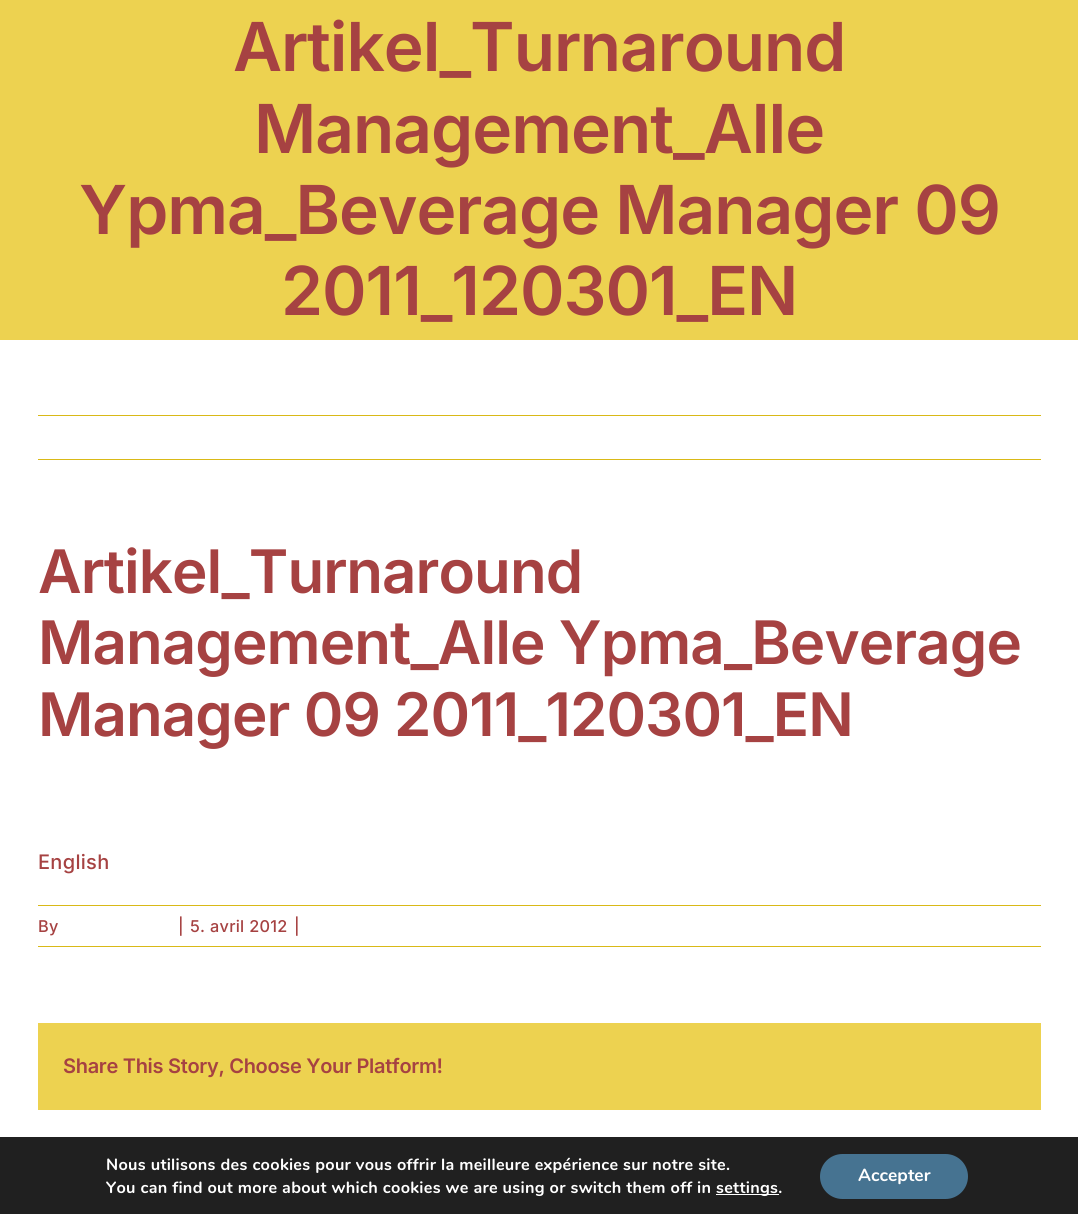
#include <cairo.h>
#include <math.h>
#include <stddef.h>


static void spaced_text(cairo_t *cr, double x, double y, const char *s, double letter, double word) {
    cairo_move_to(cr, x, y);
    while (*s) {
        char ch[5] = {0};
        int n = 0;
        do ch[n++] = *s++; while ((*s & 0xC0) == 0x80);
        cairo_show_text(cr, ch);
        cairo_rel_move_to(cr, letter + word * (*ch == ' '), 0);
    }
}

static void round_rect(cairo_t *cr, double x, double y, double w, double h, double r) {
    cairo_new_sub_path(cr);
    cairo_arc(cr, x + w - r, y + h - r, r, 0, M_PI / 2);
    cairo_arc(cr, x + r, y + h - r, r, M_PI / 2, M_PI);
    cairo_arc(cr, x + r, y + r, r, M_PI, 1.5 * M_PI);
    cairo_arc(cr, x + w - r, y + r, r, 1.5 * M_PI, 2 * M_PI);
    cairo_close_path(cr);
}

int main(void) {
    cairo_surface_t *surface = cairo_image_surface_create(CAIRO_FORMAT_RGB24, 1078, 1214);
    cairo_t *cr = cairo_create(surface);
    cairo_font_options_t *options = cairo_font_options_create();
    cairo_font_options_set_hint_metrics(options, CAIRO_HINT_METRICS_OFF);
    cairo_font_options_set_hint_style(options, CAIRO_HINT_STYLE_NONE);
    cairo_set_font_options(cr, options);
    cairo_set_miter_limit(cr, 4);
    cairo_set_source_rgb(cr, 0.929, 0.824, 0.314);
    cairo_paint(cr);
    cairo_select_font_face(cr, "Inter SemiBold", CAIRO_FONT_SLANT_NORMAL, CAIRO_FONT_WEIGHT_NORMAL);
    cairo_set_font_size(cr, 67.5);
    cairo_set_source_rgb(cr, 0.651, 0.259, 0.259);
    spaced_text(cr, 233, 71, "Artikel_Turnaround", -1, 0);
    spaced_text(cr, 254, 153, "Management_Alle", -1, 0);
    spaced_text(cr, 79, 234, "Ypma_Beverage Manager 09", -1, 0);
    spaced_text(cr, 281, 315, "2011_120301_EN", -1, 0);
    cairo_set_source_rgb(cr, 1, 1, 1);
    cairo_rectangle(cr, 0, 340, 1078, 797);
    cairo_fill(cr);
    cairo_set_source_rgb(cr, 0.851, 0.725, 0.09);
    cairo_rectangle(cr, 38, 415, 1003, 1);
    cairo_fill(cr);
    cairo_rectangle(cr, 38, 459, 1003, 1);
    cairo_fill(cr);
    cairo_set_font_size(cr, 60);
    cairo_set_source_rgb(cr, 0.651, 0.259, 0.259);
    spaced_text(cr, 38, 593, "Artikel_Turnaround", -0.9, 0);
    spaced_text(cr, 38, 664, "Management_Alle Ypma_Beverage", -0.9, 0);
    spaced_text(cr, 38, 736, "Manager 09 2011_120301_EN", -0.9, 0);
    cairo_select_font_face(cr, "Inter Medium", CAIRO_FONT_SLANT_NORMAL, CAIRO_FONT_WEIGHT_NORMAL);
    cairo_set_font_size(cr, 20);
    spaced_text(cr, 38, 869, "English", 0.3, 0);
    cairo_set_source_rgb(cr, 0.851, 0.725, 0.09);
    cairo_rectangle(cr, 38, 905, 1003, 1);
    cairo_fill(cr);
    cairo_rectangle(cr, 38, 946, 1003, 1);
    cairo_fill(cr);
    cairo_set_font_size(cr, 16.25);
    cairo_set_source_rgb(cr, 0.651, 0.259, 0.259);
    spaced_text(cr, 38, 932, "By", 0.3, 0);
    spaced_text(cr, 178, 932, "|", 0.3, 0);
    spaced_text(cr, 190, 932, "5. avril 2012", 0.3, 0);
    spaced_text(cr, 294, 932, "|", 0.3, 0);
    cairo_set_source_rgb(cr, 0.929, 0.824, 0.314);
    cairo_rectangle(cr, 38, 1023, 1003, 87);
    cairo_fill(cr);
    cairo_select_font_face(cr, "Inter SemiBold", CAIRO_FONT_SLANT_NORMAL, CAIRO_FONT_WEIGHT_NORMAL);
    cairo_set_font_size(cr, 20);
    cairo_set_source_rgb(cr, 0.651, 0.259, 0.259);
    spaced_text(cr, 63, 1073, "Share This Story, Choose Your Platform!", -0.3, 0);
    cairo_set_source_rgb(cr, 0.125, 0.125, 0.125);
    cairo_rectangle(cr, 0, 1137, 1078, 77);
    cairo_fill(cr);
    cairo_select_font_face(cr, "Nunito", CAIRO_FONT_SLANT_NORMAL, CAIRO_FONT_WEIGHT_BOLD);
    cairo_set_font_size(cr, 16.25);
    cairo_set_source_rgb(cr, 1, 1, 1);
    spaced_text(cr, 106, 1170, "Nous utilisons des cookies pour vous offrir la meilleure expérience sur notre site.", 0.3, 0);
    spaced_text(cr, 106, 1193, "You can find out more about which cookies we are using or switch them off in", 0.3, 0);
    cairo_rectangle(cr, 716, 1194, 63, 1);
    cairo_fill(cr);
    spaced_text(cr, 716, 1193, "settings.", 0.3, 0);
    cairo_set_source_rgb(cr, 0.275, 0.451, 0.569);
    round_rect(cr, 820, 1154, 148, 45, 22.5);
    cairo_fill(cr);
    cairo_set_font_size(cr, 17.5);
    cairo_set_source_rgb(cr, 1, 1, 1);
    cairo_move_to(cr, 858, 1181);
    cairo_show_text(cr, "Accepter");
    cairo_surface_write_to_png(surface, "page.png");
    cairo_font_options_destroy(options);
    cairo_destroy(cr);
    cairo_surface_destroy(surface);
    return 0;
}
